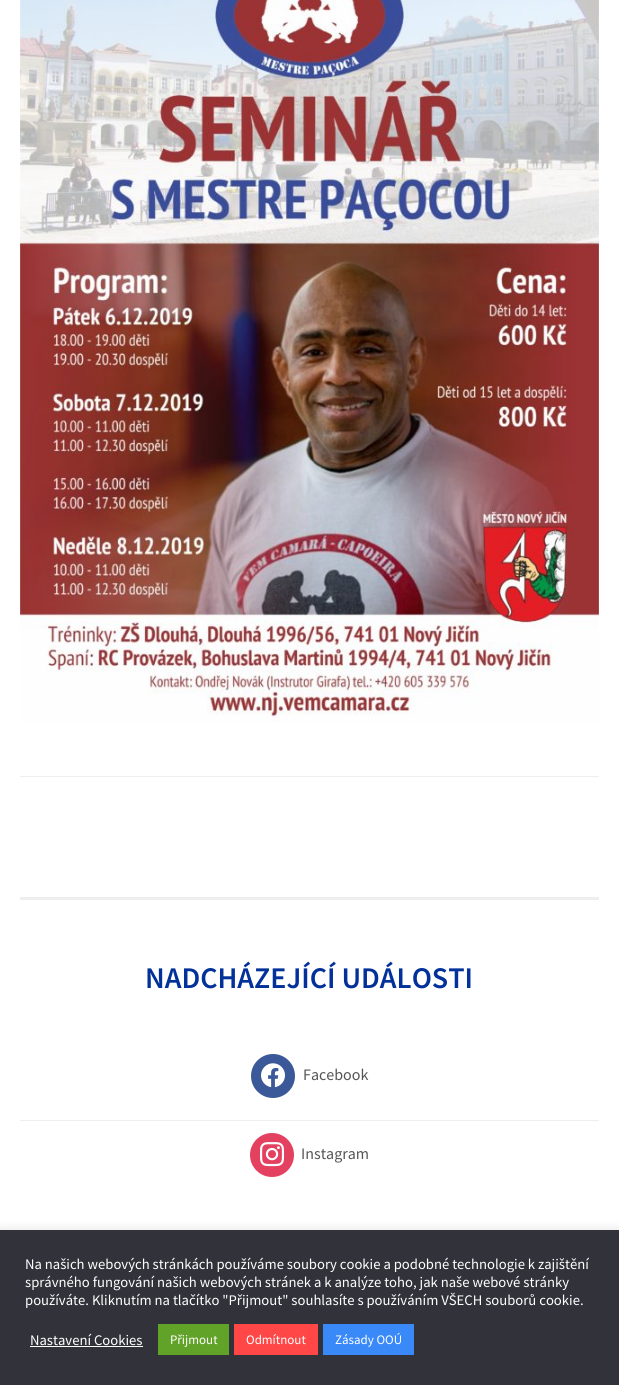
#include <cairo.h>
#include <math.h>
#include <stddef.h>


static void round_rect(cairo_t *cr, double x, double y, double w, double h, double r) {
    cairo_new_sub_path(cr);
    cairo_arc(cr, x + w - r, y + h - r, r, 0, M_PI / 2);
    cairo_arc(cr, x + r, y + h - r, r, M_PI / 2, M_PI);
    cairo_arc(cr, x + r, y + r, r, M_PI, 1.5 * M_PI);
    cairo_arc(cr, x + w - r, y + r, r, 1.5 * M_PI, 2 * M_PI);
    cairo_close_path(cr);
}

static void shadow(cairo_t *cr, double x, double y, double w, double h, double r, double blur, double alpha) {
    cairo_push_group_with_content(cr, CAIRO_CONTENT_ALPHA);
    cairo_set_operator(cr, CAIRO_OPERATOR_SOURCE);
    for (int i = 15; i >= -15 && fmin(w, h) + blur * i / 3 > 0; i -= 2) {
        double e = blur * i / 6;
        cairo_set_source_rgba(cr, 0, 0, 0, alpha * erfc((i - 1) / 8.5) / 2);
        round_rect(cr, x - e, y - e, w + 2 * e, h + 2 * e, fmax(0, fmin(r + e + blur * .6, fmin(w, h) / 2 + e)));
        cairo_fill(cr);
    }
    cairo_pattern_t *soft = cairo_pop_group(cr);
    cairo_mask(cr, soft);
    cairo_pattern_destroy(soft);
}

static void picture(cairo_t *cr, const char *path, double x, double y, double w, double h) {
    cairo_surface_t *image = cairo_image_surface_create_from_png(path);
    cairo_save(cr);
    cairo_set_source_surface(cr, image, x, y);
    cairo_rectangle(cr, x, y, w, h);
    cairo_fill(cr);
    cairo_restore(cr);
    cairo_surface_destroy(image);
}

int main(void) {
    cairo_surface_t *surface = cairo_image_surface_create(CAIRO_FORMAT_RGB24, 619, 1385);
    cairo_t *cr = cairo_create(surface);
    cairo_font_options_t *options = cairo_font_options_create();
    cairo_font_options_set_hint_metrics(options, CAIRO_HINT_METRICS_OFF);
    cairo_font_options_set_hint_style(options, CAIRO_HINT_STYLE_NONE);
    cairo_set_font_options(cr, options);
    cairo_set_miter_limit(cr, 4);
    cairo_set_source_rgb(cr, 1, 1, 1);
    cairo_paint(cr);
    cairo_set_source_rgb(cr, 0.933, 0.933, 0.933);
    cairo_rectangle(cr, 20, 776, 579, 1);
    cairo_fill(cr);
    picture(cr, "img1.png", 20, 0, 579, 724);
    cairo_rectangle(cr, 20, 897, 579, 3);
    cairo_fill(cr);
    cairo_select_font_face(cr, "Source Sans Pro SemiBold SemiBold", CAIRO_FONT_SLANT_NORMAL, CAIRO_FONT_WEIGHT_NORMAL);
    cairo_set_font_size(cr, 30);
    cairo_set_source_rgb(cr, 0.008, 0.192, 0.6);
    cairo_move_to(cr, 145, 988);
    cairo_show_text(cr, "NADCHÁZEJÍCÍ UDÁLOSTI");
    cairo_set_source_rgb(cr, 0.231, 0.349, 0.596);
    cairo_new_path(cr);
    cairo_arc(cr, 273, 1076, 22, 0, 2 * M_PI);
    cairo_fill(cr);
    picture(cr, "img2.png", 261, 1063, 24, 25);
    cairo_select_font_face(cr, "Source Sans Pro", CAIRO_FONT_SLANT_NORMAL, CAIRO_FONT_WEIGHT_NORMAL);
    cairo_set_font_size(cr, 16);
    cairo_set_source_rgb(cr, 0.333, 0.333, 0.333);
    cairo_move_to(cr, 303, 1080);
    cairo_show_text(cr, "Facebook");
    cairo_set_source_rgb(cr, 0.933, 0.933, 0.933);
    cairo_rectangle(cr, 20, 1120, 579, 1);
    cairo_fill(cr);
    cairo_set_source_rgb(cr, 0.894, 0.251, 0.373);
    cairo_arc(cr, 272, 1155, 22, 0, 2 * M_PI);
    cairo_fill(cr);
    picture(cr, "img3.png", 260, 1142, 25, 25);
    cairo_set_source_rgb(cr, 0.333, 0.333, 0.333);
    cairo_move_to(cr, 301, 1159);
    cairo_show_text(cr, "Instagram");
    cairo_set_source_rgb(cr, 0.675, 0.671, 0.671);
    shadow(cr, 0, 1229, 619, 155, 0, 5, 0.3);
    cairo_set_source_rgb(cr, 0.196, 0.196, 0.227);
    cairo_rectangle(cr, 0, 1230, 619, 155);
    cairo_fill(cr);
    cairo_set_font_size(cr, 14.65);
    cairo_set_source_rgb(cr, 1, 1, 1);
    cairo_move_to(cr, 25, 1269);
    cairo_show_text(cr, "Na našich webových stránkách používáme soubory cookie a podobné technologie k zajištění");
    cairo_move_to(cr, 25, 1287);
    cairo_show_text(cr, "správného fungování našich webových stránek a k analýze toho, jak naše webové stránky");
    cairo_move_to(cr, 25, 1305);
    cairo_show_text(cr, "používáte. Kliknutím na tlačítko \"Přijmout\" souhlasíte s používáním VŠECH souborů cookie.");
    cairo_move_to(cr, 30, 1345);
    cairo_show_text(cr, "Nastavení Cookies");
    cairo_rectangle(cr, 30, 1346, 113, 1);
    cairo_fill(cr);
    cairo_set_source_rgb(cr, 0.38, 0.635, 0.161);
    cairo_rectangle(cr, 158, 1324, 71, 31);
    cairo_fill(cr);
    cairo_set_font_size(cr, 13);
    cairo_set_source_rgb(cr, 1, 1, 1);
    cairo_move_to(cr, 170, 1344);
    cairo_show_text(cr, "Přijmout");
    cairo_set_source_rgb(cr, 1, 0.278, 0.278);
    cairo_rectangle(cr, 234, 1324, 84, 31);
    cairo_fill(cr);
    cairo_set_source_rgb(cr, 1, 1, 1);
    cairo_move_to(cr, 246, 1344);
    cairo_show_text(cr, "Odmítnout");
    cairo_set_source_rgb(cr, 0.224, 0.537, 0.976);
    cairo_rectangle(cr, 323, 1324, 91, 31);
    cairo_fill(cr);
    cairo_set_source_rgb(cr, 1, 1, 1);
    cairo_move_to(cr, 335, 1344);
    cairo_show_text(cr, "Zásady OOÚ");
    cairo_surface_write_to_png(surface, "page.png");
    cairo_font_options_destroy(options);
    cairo_destroy(cr);
    cairo_surface_destroy(surface);
    return 0;
}
